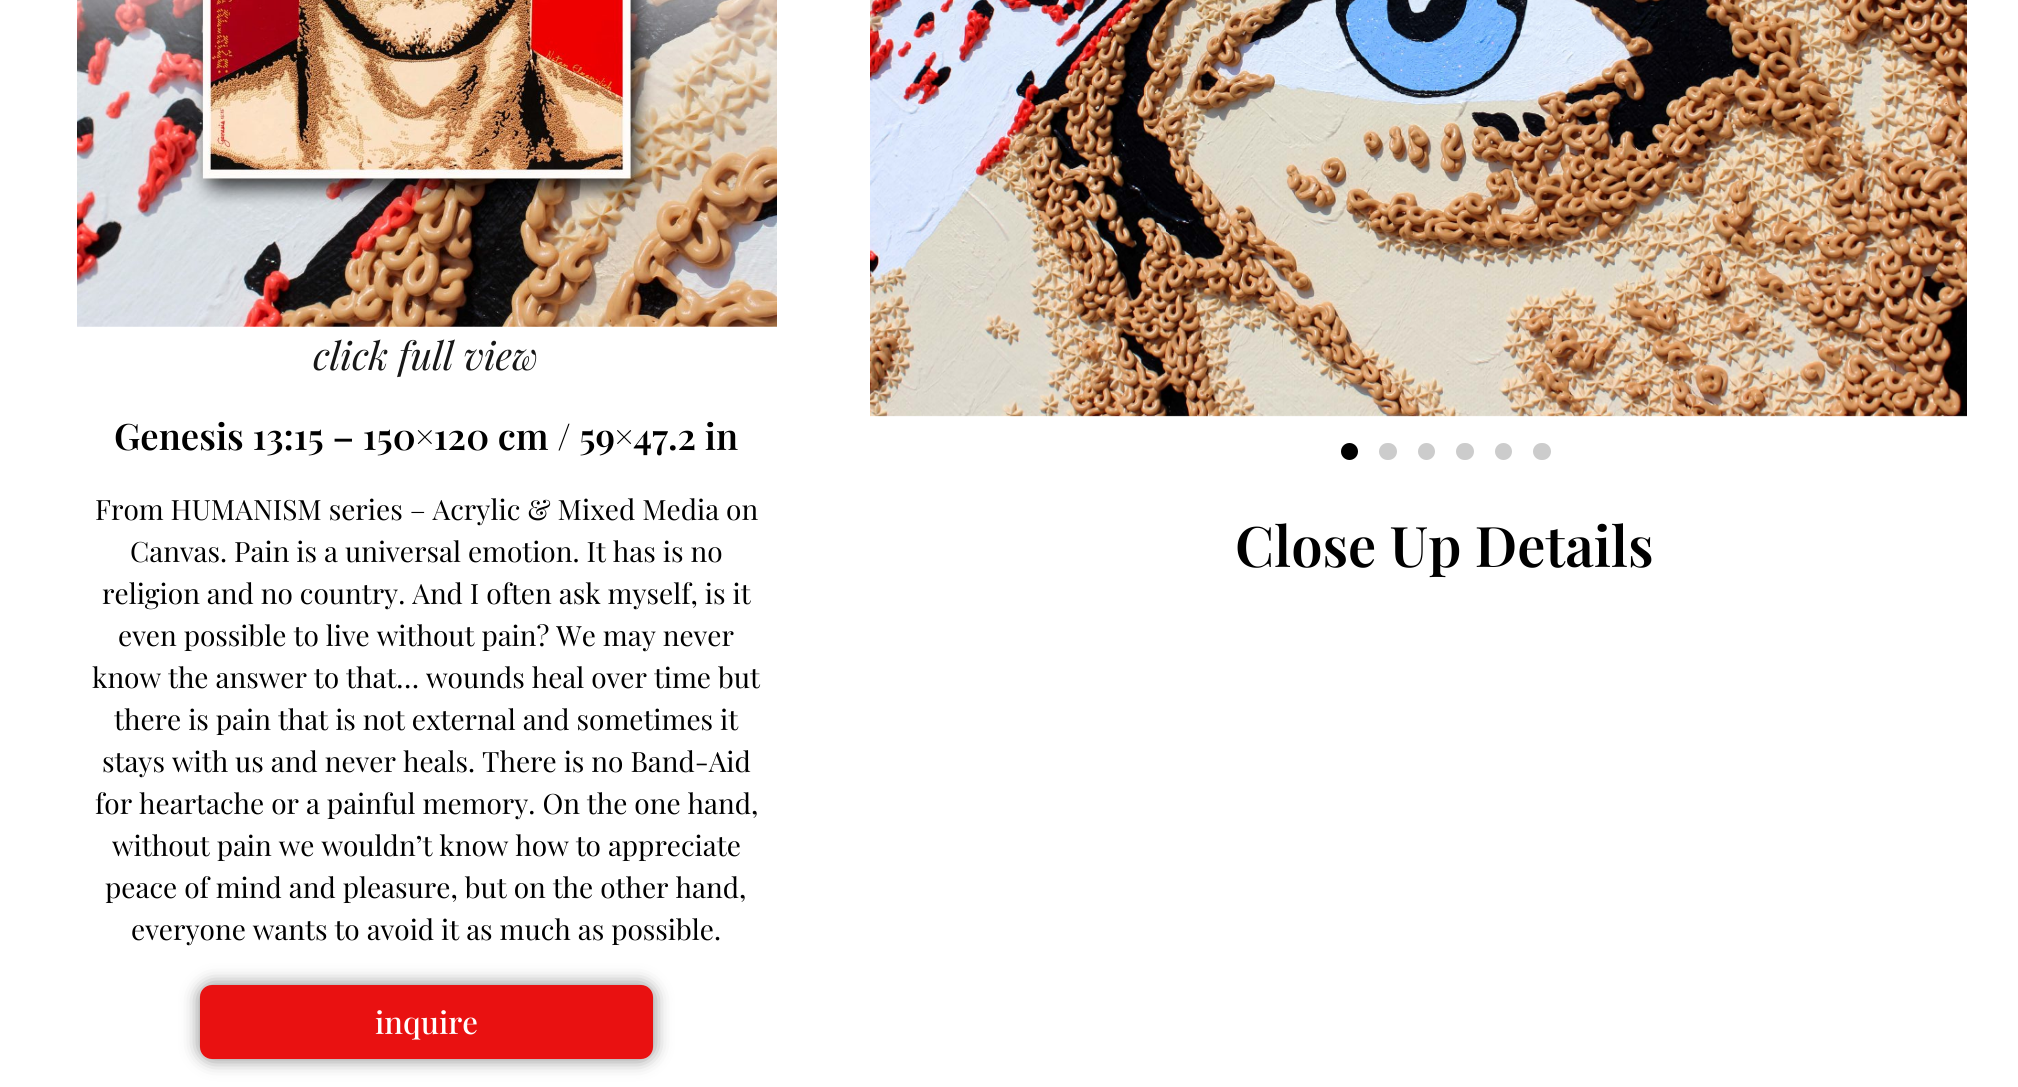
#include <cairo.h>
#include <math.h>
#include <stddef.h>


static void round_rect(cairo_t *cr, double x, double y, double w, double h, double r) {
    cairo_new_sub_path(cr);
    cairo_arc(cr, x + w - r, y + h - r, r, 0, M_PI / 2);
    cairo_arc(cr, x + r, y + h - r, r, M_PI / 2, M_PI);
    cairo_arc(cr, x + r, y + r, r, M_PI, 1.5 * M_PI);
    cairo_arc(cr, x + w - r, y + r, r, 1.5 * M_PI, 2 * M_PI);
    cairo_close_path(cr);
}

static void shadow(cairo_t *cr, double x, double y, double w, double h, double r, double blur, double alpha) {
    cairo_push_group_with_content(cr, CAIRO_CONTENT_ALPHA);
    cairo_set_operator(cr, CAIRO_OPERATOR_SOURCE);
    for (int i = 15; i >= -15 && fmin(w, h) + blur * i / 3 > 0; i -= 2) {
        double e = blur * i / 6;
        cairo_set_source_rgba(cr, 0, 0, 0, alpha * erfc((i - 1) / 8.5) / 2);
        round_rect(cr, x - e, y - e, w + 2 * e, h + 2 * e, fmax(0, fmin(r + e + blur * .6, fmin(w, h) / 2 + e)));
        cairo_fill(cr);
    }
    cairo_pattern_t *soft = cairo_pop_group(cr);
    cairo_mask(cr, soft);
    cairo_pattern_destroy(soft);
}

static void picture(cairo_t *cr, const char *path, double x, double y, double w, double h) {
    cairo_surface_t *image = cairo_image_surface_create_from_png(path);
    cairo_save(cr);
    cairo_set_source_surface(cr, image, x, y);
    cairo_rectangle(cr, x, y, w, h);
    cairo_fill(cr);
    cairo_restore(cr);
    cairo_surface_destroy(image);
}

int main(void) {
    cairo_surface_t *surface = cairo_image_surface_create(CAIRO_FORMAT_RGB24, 2018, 1087);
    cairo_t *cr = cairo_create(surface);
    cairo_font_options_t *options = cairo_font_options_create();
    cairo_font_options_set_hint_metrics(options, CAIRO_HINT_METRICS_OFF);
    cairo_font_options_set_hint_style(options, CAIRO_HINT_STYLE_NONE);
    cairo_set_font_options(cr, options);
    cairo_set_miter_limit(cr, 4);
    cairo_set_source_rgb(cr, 1, 1, 1);
    cairo_paint(cr);
    picture(cr, "img1.png", 77, 0, 700, 327);
    cairo_select_font_face(cr, "Playfair Display", CAIRO_FONT_SLANT_ITALIC, CAIRO_FONT_WEIGHT_NORMAL);
    cairo_set_font_size(cr, 38.5);
    cairo_set_source_rgb(cr, 0.09, 0.09, 0.09);
    cairo_move_to(cr, 313, 370);
    cairo_show_text(cr, "click full view");
    cairo_select_font_face(cr, "Playfair Display SemiBold", CAIRO_FONT_SLANT_NORMAL, CAIRO_FONT_WEIGHT_NORMAL);
    cairo_set_font_size(cr, 36.4);
    cairo_set_source_rgb(cr, 0, 0, 0);
    cairo_move_to(cr, 114, 450);
    cairo_show_text(cr, "Genesis 13:15 – 150×120 cm / 59×47.2 in");
    cairo_select_font_face(cr, "Playfair Display", CAIRO_FONT_SLANT_NORMAL, CAIRO_FONT_WEIGHT_NORMAL);
    cairo_set_font_size(cr, 28);
    cairo_move_to(cr, 95, 520);
    cairo_show_text(cr, "From HUMANISM series – Acrylic & Mixed Media on");
    cairo_move_to(cr, 130, 562);
    cairo_show_text(cr, "Canvas. Pain is a universal emotion. It has is no");
    cairo_move_to(cr, 102, 604);
    cairo_show_text(cr, "religion and no country. And I often ask myself, is it");
    cairo_move_to(cr, 118, 646);
    cairo_show_text(cr, "even possible to live without pain? We may never");
    cairo_move_to(cr, 92, 688);
    cairo_show_text(cr, "know the answer to that… wounds heal over time but");
    cairo_move_to(cr, 114, 730);
    cairo_show_text(cr, "there is pain that is not external and sometimes it");
    cairo_move_to(cr, 102, 772);
    cairo_show_text(cr, "stays with us and never heals. There is no Band-Aid");
    cairo_move_to(cr, 95, 814);
    cairo_show_text(cr, "for heartache or a painful memory. On the one hand,");
    cairo_move_to(cr, 112, 856);
    cairo_show_text(cr, "without pain we wouldn’t know how to appreciate");
    cairo_move_to(cr, 105, 898);
    cairo_show_text(cr, "peace of mind and pleasure, but on the other hand,");
    cairo_move_to(cr, 131, 940);
    cairo_show_text(cr, "everyone wants to avoid it as much as possible.");
    cairo_set_source_rgb(cr, 0, 0, 0);
    shadow(cr, 200, 985, 453, 74, 12, 9, 0.5);
    cairo_set_source_rgb(cr, 0.914, 0.067, 0.067);
    round_rect(cr, 200, 985, 453, 74, 12);
    cairo_fill(cr);
    cairo_select_font_face(cr, "Playfair Display Medium", CAIRO_FONT_SLANT_NORMAL, CAIRO_FONT_WEIGHT_NORMAL);
    cairo_set_font_size(cr, 31);
    cairo_set_source_rgb(cr, 1, 1, 1);
    cairo_move_to(cr, 375, 1034);
    cairo_show_text(cr, "inquire");
    picture(cr, "img2.png", 870, 0, 1097, 417);
    cairo_set_source_rgb(cr, 0, 0, 0);
    cairo_arc(cr, 1349.5, 451.5, 8.5, 0, 2 * M_PI);
    cairo_fill(cr);
    cairo_set_source_rgb(cr, 0.8, 0.8, 0.8);
    round_rect(cr, 1379, 443, 18, 17, 8.5);
    cairo_fill(cr);
    cairo_arc(cr, 1426.5, 451.5, 8.5, 0, 2 * M_PI);
    cairo_fill(cr);
    round_rect(cr, 1456, 443, 18, 17, 8.5);
    cairo_fill(cr);
    cairo_arc(cr, 1503.5, 451.5, 8.5, 0, 2 * M_PI);
    cairo_fill(cr);
    round_rect(cr, 1533, 443, 18, 17, 8.5);
    cairo_fill(cr);
    cairo_select_font_face(cr, "Playfair Display SemiBold", CAIRO_FONT_SLANT_NORMAL, CAIRO_FONT_WEIGHT_NORMAL);
    cairo_set_font_size(cr, 56);
    cairo_set_source_rgb(cr, 0, 0, 0);
    cairo_move_to(cr, 1235, 567);
    cairo_show_text(cr, "Close Up Details");
    cairo_surface_write_to_png(surface, "page.png");
    cairo_font_options_destroy(options);
    cairo_destroy(cr);
    cairo_surface_destroy(surface);
    return 0;
}
